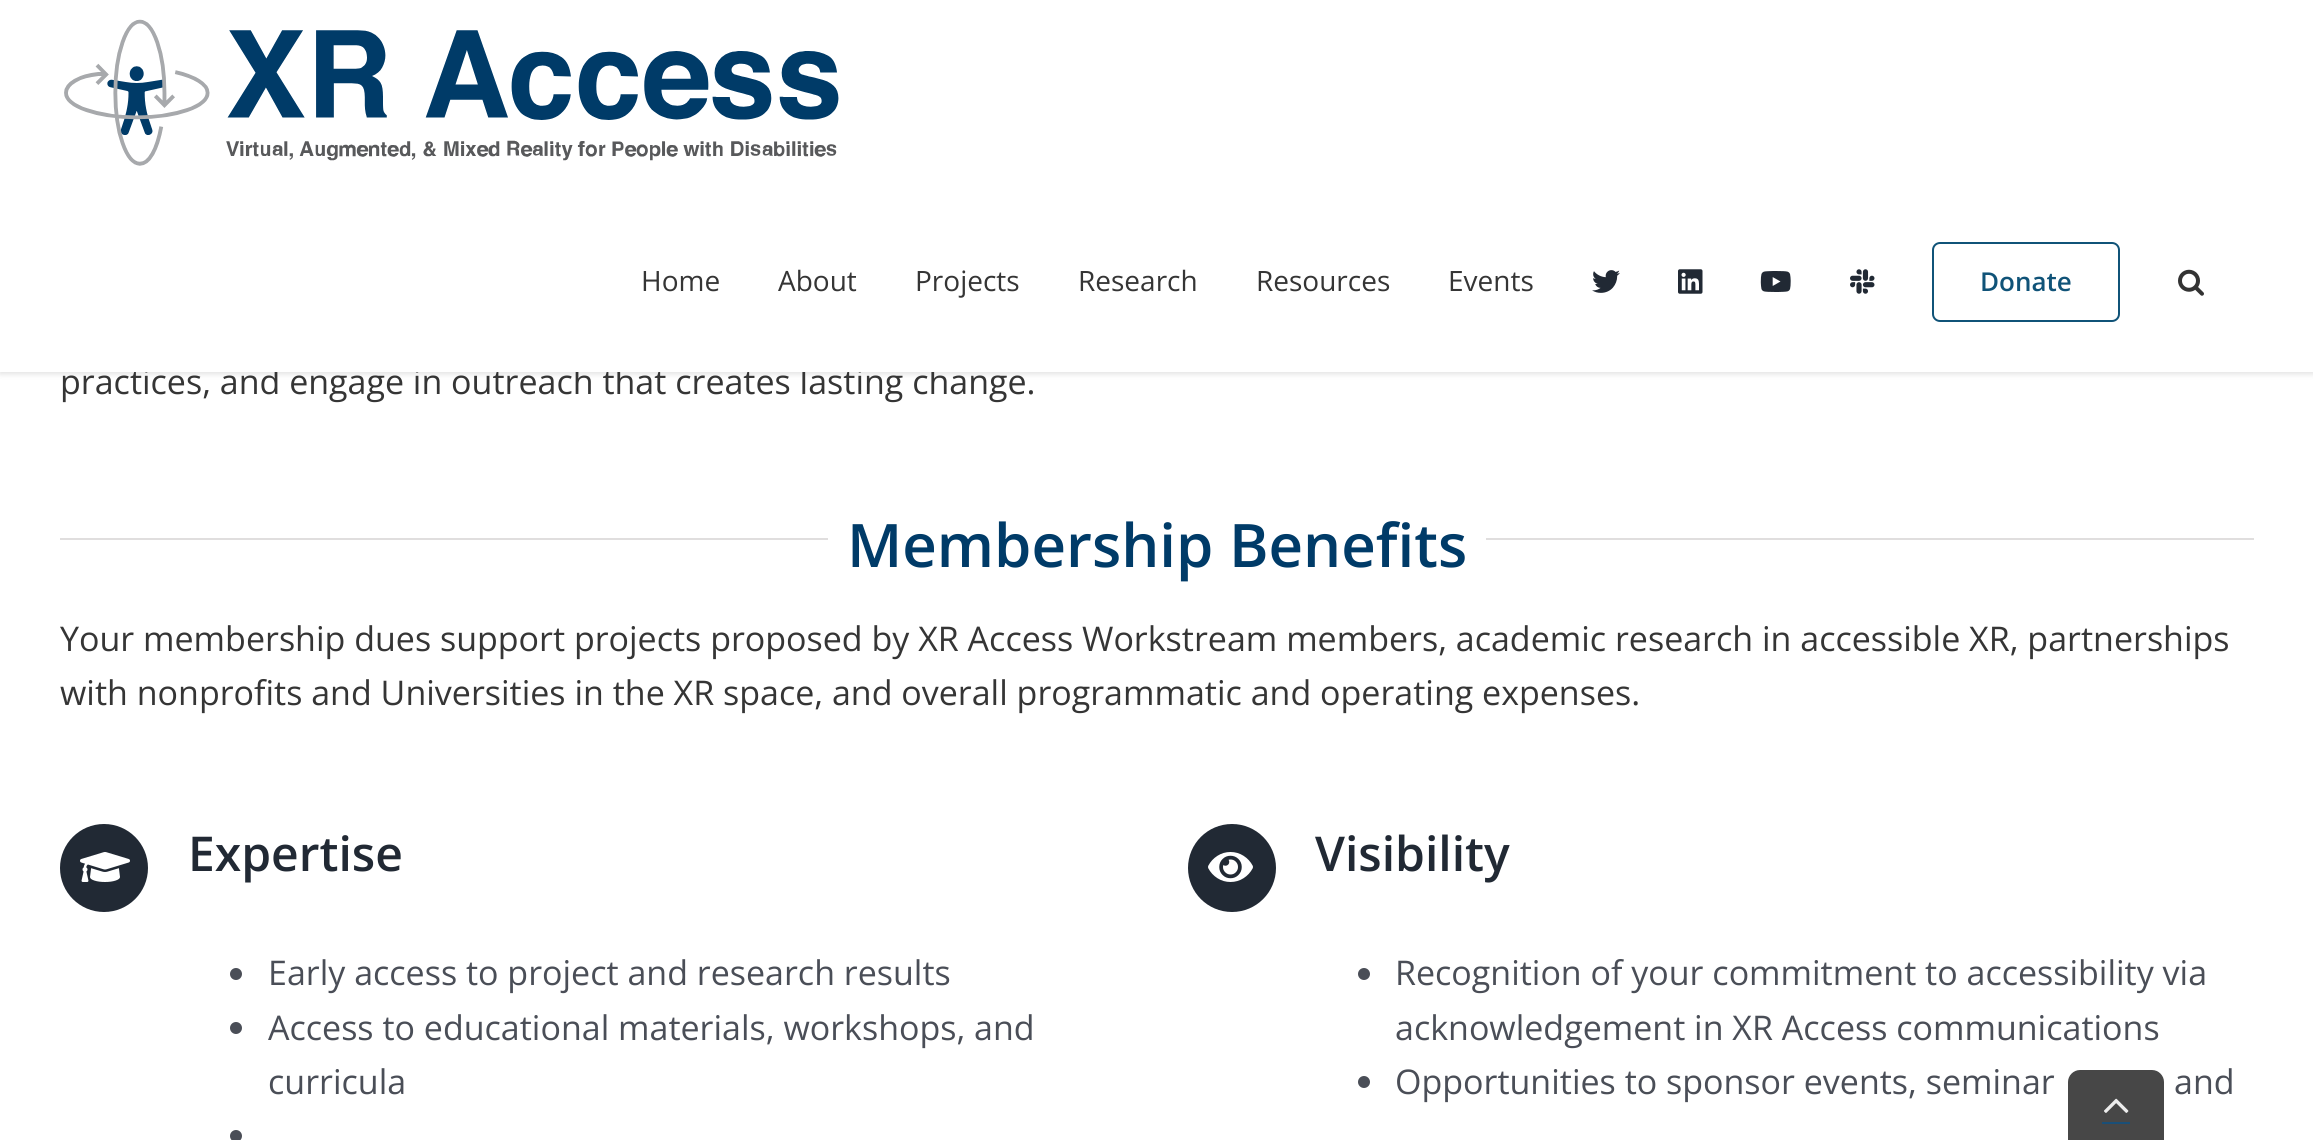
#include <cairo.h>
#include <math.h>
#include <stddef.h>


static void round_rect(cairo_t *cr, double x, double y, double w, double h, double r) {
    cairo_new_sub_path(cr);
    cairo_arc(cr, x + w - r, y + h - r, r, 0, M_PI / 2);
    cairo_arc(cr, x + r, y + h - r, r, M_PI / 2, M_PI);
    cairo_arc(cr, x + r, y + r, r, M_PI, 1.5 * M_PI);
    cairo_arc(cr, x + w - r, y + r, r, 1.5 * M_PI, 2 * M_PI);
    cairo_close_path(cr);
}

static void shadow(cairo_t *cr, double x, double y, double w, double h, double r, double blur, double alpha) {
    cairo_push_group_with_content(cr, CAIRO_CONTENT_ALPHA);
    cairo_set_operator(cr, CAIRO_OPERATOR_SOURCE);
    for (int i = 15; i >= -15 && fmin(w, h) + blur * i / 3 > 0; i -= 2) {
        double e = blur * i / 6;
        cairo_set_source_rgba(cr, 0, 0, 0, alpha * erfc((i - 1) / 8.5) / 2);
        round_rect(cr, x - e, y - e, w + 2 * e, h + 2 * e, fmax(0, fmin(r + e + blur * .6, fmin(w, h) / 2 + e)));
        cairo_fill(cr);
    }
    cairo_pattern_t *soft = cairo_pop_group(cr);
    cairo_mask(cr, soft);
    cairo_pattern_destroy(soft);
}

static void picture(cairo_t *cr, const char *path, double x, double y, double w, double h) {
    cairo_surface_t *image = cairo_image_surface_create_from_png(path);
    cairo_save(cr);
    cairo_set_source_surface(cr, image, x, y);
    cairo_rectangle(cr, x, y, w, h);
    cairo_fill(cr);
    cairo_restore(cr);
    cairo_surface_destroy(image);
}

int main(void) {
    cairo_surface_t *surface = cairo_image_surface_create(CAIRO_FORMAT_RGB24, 2313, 1140);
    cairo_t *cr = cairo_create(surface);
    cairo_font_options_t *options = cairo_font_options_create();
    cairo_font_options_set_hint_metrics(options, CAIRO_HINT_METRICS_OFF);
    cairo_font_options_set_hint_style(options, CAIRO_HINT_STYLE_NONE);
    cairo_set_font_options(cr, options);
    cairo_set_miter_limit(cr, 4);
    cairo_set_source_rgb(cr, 1, 1, 1);
    cairo_paint(cr);
    cairo_set_source_rgb(cr, 0, 0, 0);
    shadow(cr, 0, 2, 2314, 372, 0, 3, 0.12);
    cairo_select_font_face(cr, "Open Sans", CAIRO_FONT_SLANT_NORMAL, CAIRO_FONT_WEIGHT_NORMAL);
    cairo_set_font_size(cr, 34);
    cairo_set_source_rgb(cr, 0.208, 0.208, 0.208);
    cairo_move_to(cr, 60, 394);
    cairo_show_text(cr, "practices, and engage in outreach that creates lasting change.");
    cairo_set_source_rgb(cr, 1, 1, 1);
    cairo_rectangle(cr, 0, 0, 2313, 372);
    cairo_fill(cr);
    picture(cr, "img1.png", 64, 19, 775, 147);
    cairo_set_font_size(cr, 28);
    cairo_set_source_rgb(cr, 0.208, 0.208, 0.208);
    cairo_move_to(cr, 641, 291);
    cairo_show_text(cr, "Home");
    cairo_move_to(cr, 778, 291);
    cairo_show_text(cr, "About");
    cairo_move_to(cr, 915, 291);
    cairo_show_text(cr, "Projects");
    cairo_move_to(cr, 1078, 291);
    cairo_show_text(cr, "Research");
    cairo_move_to(cr, 1256, 291);
    cairo_show_text(cr, "Resources");
    cairo_move_to(cr, 1448, 291);
    cairo_show_text(cr, "Events");
    picture(cr, "img2.png", 1592, 270, 28, 23);
    picture(cr, "img3.png", 1678, 269, 25, 25);
    picture(cr, "img4.png", 1760, 271, 31, 21);
    picture(cr, "img5.png", 1850, 269, 25, 25);
    round_rect(cr, 1933, 243, 186, 78, 7);
    cairo_set_source_rgb(cr, 0.063, 0.325, 0.471);
    cairo_stroke(cr);
    cairo_select_font_face(cr, "Open Sans SemiBold", CAIRO_FONT_SLANT_NORMAL, CAIRO_FONT_WEIGHT_NORMAL);
    cairo_set_font_size(cr, 26);
    cairo_move_to(cr, 1980, 291);
    cairo_show_text(cr, "Donate");
    picture(cr, "img6.png", 2178, 269, 26, 27);
    cairo_set_source_rgb(cr, 0.878, 0.871, 0.871);
    cairo_rectangle(cr, 60, 538, 768, 2);
    cairo_fill(cr);
    cairo_set_font_size(cr, 60);
    cairo_set_source_rgb(cr, 0, 0.231, 0.408);
    cairo_move_to(cr, 847, 567);
    cairo_show_text(cr, "Membership Benefits");
    cairo_set_source_rgb(cr, 0.878, 0.871, 0.871);
    cairo_rectangle(cr, 1486, 538, 768, 2);
    cairo_fill(cr);
    cairo_select_font_face(cr, "Open Sans", CAIRO_FONT_SLANT_NORMAL, CAIRO_FONT_WEIGHT_NORMAL);
    cairo_set_font_size(cr, 34);
    cairo_set_source_rgb(cr, 0.208, 0.208, 0.208);
    cairo_move_to(cr, 60, 651);
    cairo_show_text(cr, "Your membership dues support projects proposed by XR Access Workstream members, academic research in accessible XR, partnerships");
    cairo_move_to(cr, 60, 705);
    cairo_show_text(cr, "with nonprofits and Universities in the XR space, and overall programmatic and operating expenses.");
    cairo_set_source_rgb(cr, 0.129, 0.161, 0.204);
    cairo_new_path(cr);
    cairo_arc(cr, 104, 868, 44, 0, 2 * M_PI);
    cairo_fill(cr);
    picture(cr, "img7.png", 80, 852, 50, 30);
    cairo_select_font_face(cr, "Open Sans SemiBold", CAIRO_FONT_SLANT_NORMAL, CAIRO_FONT_WEIGHT_NORMAL);
    cairo_set_font_size(cr, 48);
    cairo_move_to(cr, 188, 871);
    cairo_show_text(cr, "Expertise");
    cairo_set_source_rgb(cr, 0.29, 0.306, 0.341);
    cairo_new_path(cr);
    cairo_arc(cr, 236, 974, 6, 0, 2 * M_PI);
    cairo_fill(cr);
    cairo_select_font_face(cr, "Open Sans", CAIRO_FONT_SLANT_NORMAL, CAIRO_FONT_WEIGHT_NORMAL);
    cairo_set_font_size(cr, 34);
    cairo_move_to(cr, 268, 985);
    cairo_show_text(cr, "Early access to project and research results");
    cairo_new_path(cr);
    cairo_arc(cr, 236, 1028, 6, 0, 2 * M_PI);
    cairo_fill(cr);
    cairo_move_to(cr, 268, 1040);
    cairo_show_text(cr, "Access to educational materials, workshops, and");
    cairo_move_to(cr, 268, 1094);
    cairo_show_text(cr, "curricula");
    cairo_new_path(cr);
    cairo_arc(cr, 236, 1136, 6, 0, 2 * M_PI);
    cairo_fill(cr);
    cairo_set_source_rgb(cr, 0.129, 0.161, 0.204);
    cairo_arc(cr, 1232, 868, 44, 0, 2 * M_PI);
    cairo_fill(cr);
    picture(cr, "img8.png", 1208, 852, 45, 30);
    cairo_select_font_face(cr, "Open Sans SemiBold", CAIRO_FONT_SLANT_NORMAL, CAIRO_FONT_WEIGHT_NORMAL);
    cairo_set_font_size(cr, 48);
    cairo_move_to(cr, 1315, 871);
    cairo_show_text(cr, "Visibility");
    cairo_set_source_rgb(cr, 0.29, 0.306, 0.341);
    cairo_new_path(cr);
    cairo_arc(cr, 1364, 974, 6, 0, 2 * M_PI);
    cairo_fill(cr);
    cairo_select_font_face(cr, "Open Sans", CAIRO_FONT_SLANT_NORMAL, CAIRO_FONT_WEIGHT_NORMAL);
    cairo_set_font_size(cr, 34);
    cairo_move_to(cr, 1395, 985);
    cairo_show_text(cr, "Recognition of your commitment to accessibility via");
    cairo_move_to(cr, 1395, 1040);
    cairo_show_text(cr, "acknowledgement in XR Access communications");
    cairo_new_path(cr);
    cairo_arc(cr, 1364, 1082, 6, 0, 2 * M_PI);
    cairo_fill(cr);
    cairo_move_to(cr, 1395, 1094);
    cairo_show_text(cr, "Opportunities to sponsor events, seminar");
    cairo_move_to(cr, 2174, 1094);
    cairo_show_text(cr, "and");
    cairo_set_source_rgba(cr, 0.2, 0.2, 0.2, 0.9);
    cairo_new_path(cr);
    cairo_move_to(cr, 2080, 1070);
    cairo_line_to(cr, 2152, 1070);
    cairo_curve_to(cr, 2158.5, 1070, 2164, 1075.5, 2164, 1082);
    cairo_line_to(cr, 2164, 1140);
    cairo_line_to(cr, 2068, 1140);
    cairo_line_to(cr, 2068, 1082);
    cairo_curve_to(cr, 2068, 1075.5, 2073.5, 1070, 2080, 1070);
    cairo_close_path(cr);
    cairo_fill(cr);
    picture(cr, "img9.png", 2104, 1098, 25, 15);
    cairo_set_source_rgb(cr, 0.102, 0.31, 0.467);
    cairo_rectangle(cr, 2102, 1122, 28, 2);
    cairo_fill(cr);
    cairo_surface_write_to_png(surface, "page.png");
    cairo_font_options_destroy(options);
    cairo_destroy(cr);
    cairo_surface_destroy(surface);
    return 0;
}
